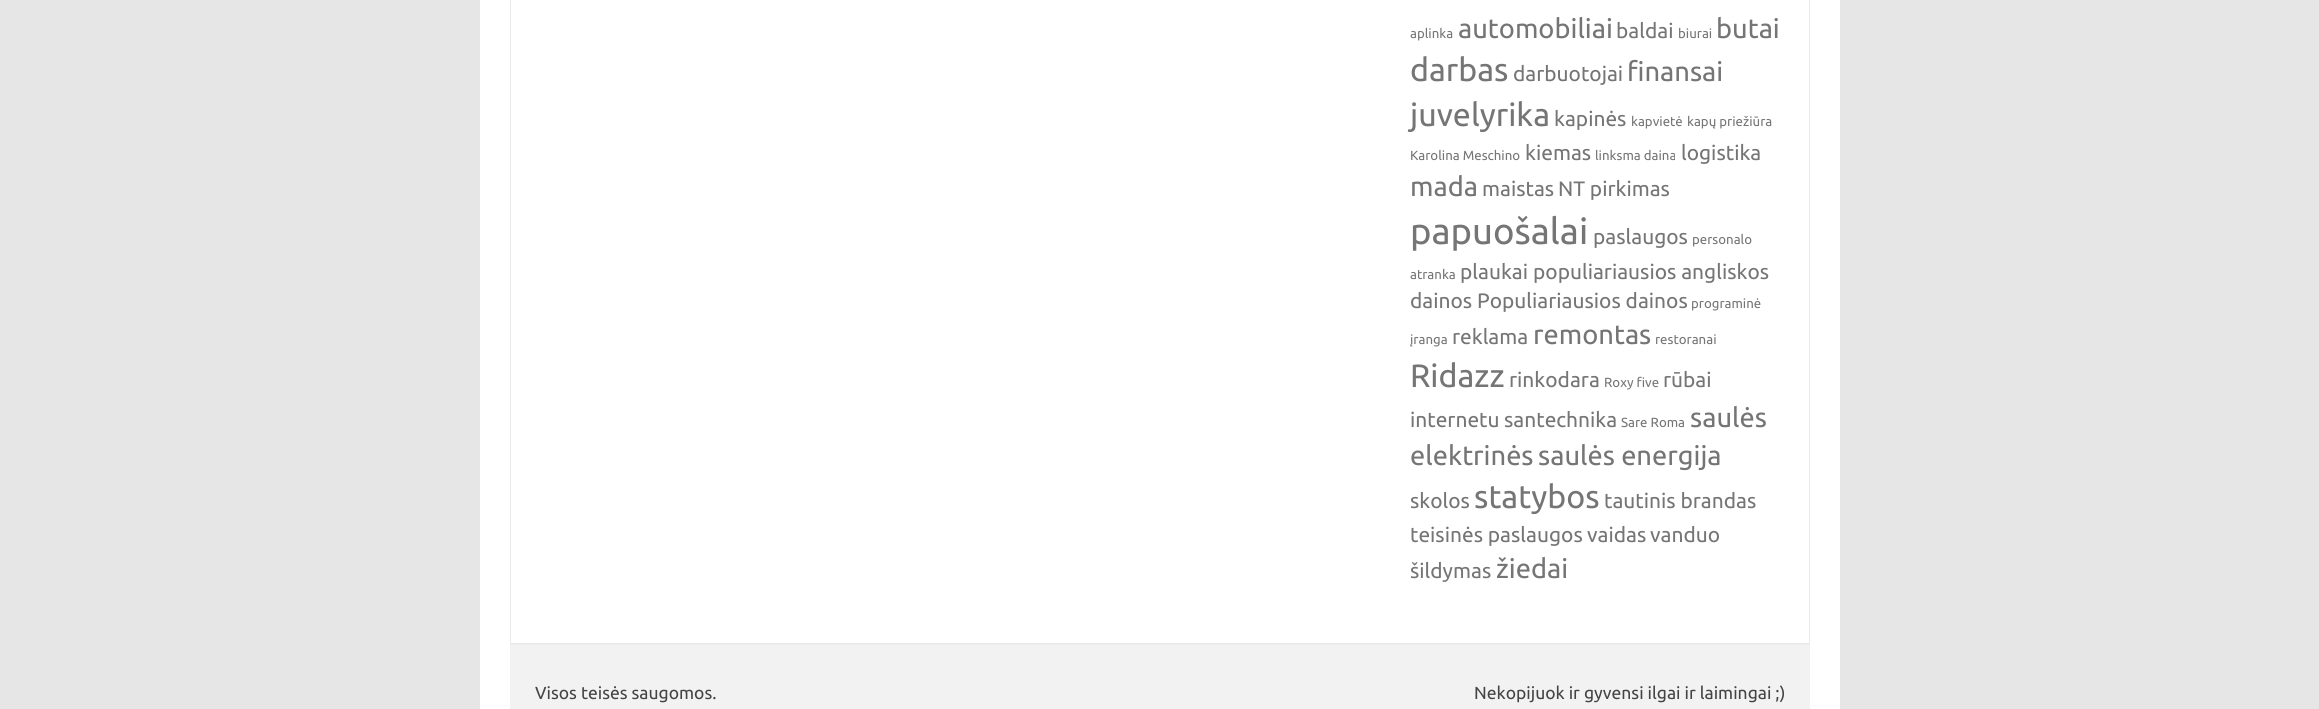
#include <cairo.h>
#include <math.h>
#include <stddef.h>


int main(void) {
    cairo_surface_t *surface = cairo_image_surface_create(CAIRO_FORMAT_RGB24, 2319, 709);
    cairo_t *cr = cairo_create(surface);
    cairo_font_options_t *options = cairo_font_options_create();
    cairo_font_options_set_hint_metrics(options, CAIRO_HINT_METRICS_OFF);
    cairo_font_options_set_hint_style(options, CAIRO_HINT_STYLE_NONE);
    cairo_set_font_options(cr, options);
    cairo_set_miter_limit(cr, 4);
    cairo_set_source_rgb(cr, 0.902, 0.902, 0.902);
    cairo_paint(cr);
    cairo_set_source_rgb(cr, 1, 1, 1);
    cairo_rectangle(cr, 480, 0, 1360, 709);
    cairo_fill(cr);
    cairo_rectangle(cr, 510.5, -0.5, 1299, 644);
    cairo_set_source_rgb(cr, 0.914, 0.914, 0.914);
    cairo_set_line_width(cr, 1);
    cairo_stroke(cr);
    cairo_select_font_face(cr, "Ubuntu", CAIRO_FONT_SLANT_NORMAL, CAIRO_FONT_WEIGHT_NORMAL);
    cairo_set_font_size(cr, 13.25);
    cairo_set_source_rgb(cr, 0.459, 0.459, 0.459);
    cairo_move_to(cr, 1410, 38);
    cairo_show_text(cr, "aplinka");
    cairo_set_font_size(cr, 27.25);
    cairo_move_to(cr, 1458, 38);
    cairo_show_text(cr, "automobiliai");
    cairo_set_font_size(cr, 20.9);
    cairo_move_to(cr, 1616, 38);
    cairo_show_text(cr, "baldai");
    cairo_set_font_size(cr, 13.25);
    cairo_move_to(cr, 1678, 38);
    cairo_show_text(cr, "biurai");
    cairo_set_font_size(cr, 27.25);
    cairo_move_to(cr, 1716, 38);
    cairo_show_text(cr, "butai");
    cairo_set_font_size(cr, 32.25);
    cairo_move_to(cr, 1410, 81);
    cairo_show_text(cr, "darbas");
    cairo_set_font_size(cr, 20.9);
    cairo_move_to(cr, 1513, 81);
    cairo_show_text(cr, "darbuotojai");
    cairo_set_font_size(cr, 27.25);
    cairo_move_to(cr, 1627, 81);
    cairo_show_text(cr, "finansai");
    cairo_set_font_size(cr, 32.25);
    cairo_move_to(cr, 1410, 126);
    cairo_show_text(cr, "juvelyrika");
    cairo_set_font_size(cr, 20.9);
    cairo_move_to(cr, 1554, 126);
    cairo_show_text(cr, "kapinės");
    cairo_set_font_size(cr, 13.25);
    cairo_move_to(cr, 1631, 126);
    cairo_show_text(cr, "kapvietė");
    cairo_move_to(cr, 1687, 126);
    cairo_show_text(cr, "kapų priežiūra");
    cairo_move_to(cr, 1410, 160);
    cairo_show_text(cr, "Karolina Meschino");
    cairo_set_font_size(cr, 20.9);
    cairo_move_to(cr, 1525, 160);
    cairo_show_text(cr, "kiemas");
    cairo_set_font_size(cr, 13.25);
    cairo_move_to(cr, 1595, 160);
    cairo_show_text(cr, "linksma daina");
    cairo_set_font_size(cr, 20.9);
    cairo_move_to(cr, 1681, 160);
    cairo_show_text(cr, "logistika");
    cairo_set_font_size(cr, 27.25);
    cairo_move_to(cr, 1410, 196);
    cairo_show_text(cr, "mada");
    cairo_set_font_size(cr, 20.9);
    cairo_move_to(cr, 1482, 196);
    cairo_show_text(cr, "maistas");
    cairo_move_to(cr, 1558, 196);
    cairo_show_text(cr, "NT pirkimas");
    cairo_set_font_size(cr, 36.5);
    cairo_move_to(cr, 1410, 244);
    cairo_show_text(cr, "papuošalai");
    cairo_set_font_size(cr, 20.9);
    cairo_move_to(cr, 1593, 244);
    cairo_show_text(cr, "paslaugos");
    cairo_set_font_size(cr, 13.25);
    cairo_move_to(cr, 1692, 244);
    cairo_show_text(cr, "personalo");
    cairo_move_to(cr, 1410, 279);
    cairo_show_text(cr, "atranka");
    cairo_set_font_size(cr, 20.9);
    cairo_move_to(cr, 1460, 279);
    cairo_show_text(cr, "plaukai");
    cairo_move_to(cr, 1533, 279);
    cairo_show_text(cr, "populiariausios angliskos");
    cairo_move_to(cr, 1410, 308);
    cairo_show_text(cr, "dainos");
    cairo_move_to(cr, 1477, 308);
    cairo_show_text(cr, "Populiariausios dainos");
    cairo_set_font_size(cr, 13.25);
    cairo_move_to(cr, 1691, 308);
    cairo_show_text(cr, "programinė");
    cairo_move_to(cr, 1410, 344);
    cairo_show_text(cr, "įranga");
    cairo_set_font_size(cr, 20.9);
    cairo_move_to(cr, 1452, 344);
    cairo_show_text(cr, "reklama");
    cairo_set_font_size(cr, 27.25);
    cairo_move_to(cr, 1533, 344);
    cairo_show_text(cr, "remontas");
    cairo_set_font_size(cr, 13.25);
    cairo_move_to(cr, 1655, 344);
    cairo_show_text(cr, "restoranai");
    cairo_set_font_size(cr, 32.25);
    cairo_move_to(cr, 1410, 387);
    cairo_show_text(cr, "Ridazz");
    cairo_set_font_size(cr, 20.9);
    cairo_move_to(cr, 1509, 387);
    cairo_show_text(cr, "rinkodara");
    cairo_set_font_size(cr, 13.25);
    cairo_move_to(cr, 1604, 387);
    cairo_show_text(cr, "Roxy five");
    cairo_set_font_size(cr, 20.9);
    cairo_move_to(cr, 1663, 387);
    cairo_show_text(cr, "rūbai");
    cairo_move_to(cr, 1410, 427);
    cairo_show_text(cr, "internetu");
    cairo_move_to(cr, 1504, 427);
    cairo_show_text(cr, "santechnika");
    cairo_set_font_size(cr, 13.25);
    cairo_move_to(cr, 1621, 427);
    cairo_show_text(cr, "Sare Roma");
    cairo_set_font_size(cr, 27.25);
    cairo_move_to(cr, 1690, 427);
    cairo_show_text(cr, "saulės");
    cairo_move_to(cr, 1410, 465);
    cairo_show_text(cr, "elektrinės");
    cairo_move_to(cr, 1538, 465);
    cairo_show_text(cr, "saulės energija");
    cairo_set_font_size(cr, 20.9);
    cairo_move_to(cr, 1410, 508);
    cairo_show_text(cr, "skolos");
    cairo_set_font_size(cr, 32.25);
    cairo_move_to(cr, 1474, 508);
    cairo_show_text(cr, "statybos");
    cairo_set_font_size(cr, 20.9);
    cairo_move_to(cr, 1604, 508);
    cairo_show_text(cr, "tautinis brandas");
    cairo_move_to(cr, 1410, 542);
    cairo_show_text(cr, "teisinės paslaugos");
    cairo_move_to(cr, 1587, 542);
    cairo_show_text(cr, "vaidas");
    cairo_move_to(cr, 1650, 542);
    cairo_show_text(cr, "vanduo");
    cairo_move_to(cr, 1410, 578);
    cairo_show_text(cr, "šildymas");
    cairo_set_font_size(cr, 27.25);
    cairo_move_to(cr, 1496, 578);
    cairo_show_text(cr, "žiedai");
    cairo_set_source_rgb(cr, 0.949, 0.949, 0.949);
    cairo_rectangle(cr, 510, 645, 1300, 64);
    cairo_fill(cr);
    cairo_set_source_rgb(cr, 0.929, 0.929, 0.929);
    cairo_rectangle(cr, 510, 644, 1300, 1);
    cairo_fill(cr);
    cairo_set_font_size(cr, 17.5);
    cairo_set_source_rgb(cr, 0.267, 0.267, 0.267);
    cairo_move_to(cr, 535, 699);
    cairo_show_text(cr, "Visos teisės saugomos.");
    cairo_move_to(cr, 1474, 699);
    cairo_show_text(cr, "Nekopijuok ir gyvensi ilgai ir laimingai ;)");
    cairo_surface_write_to_png(surface, "page.png");
    cairo_font_options_destroy(options);
    cairo_destroy(cr);
    cairo_surface_destroy(surface);
    return 0;
}
